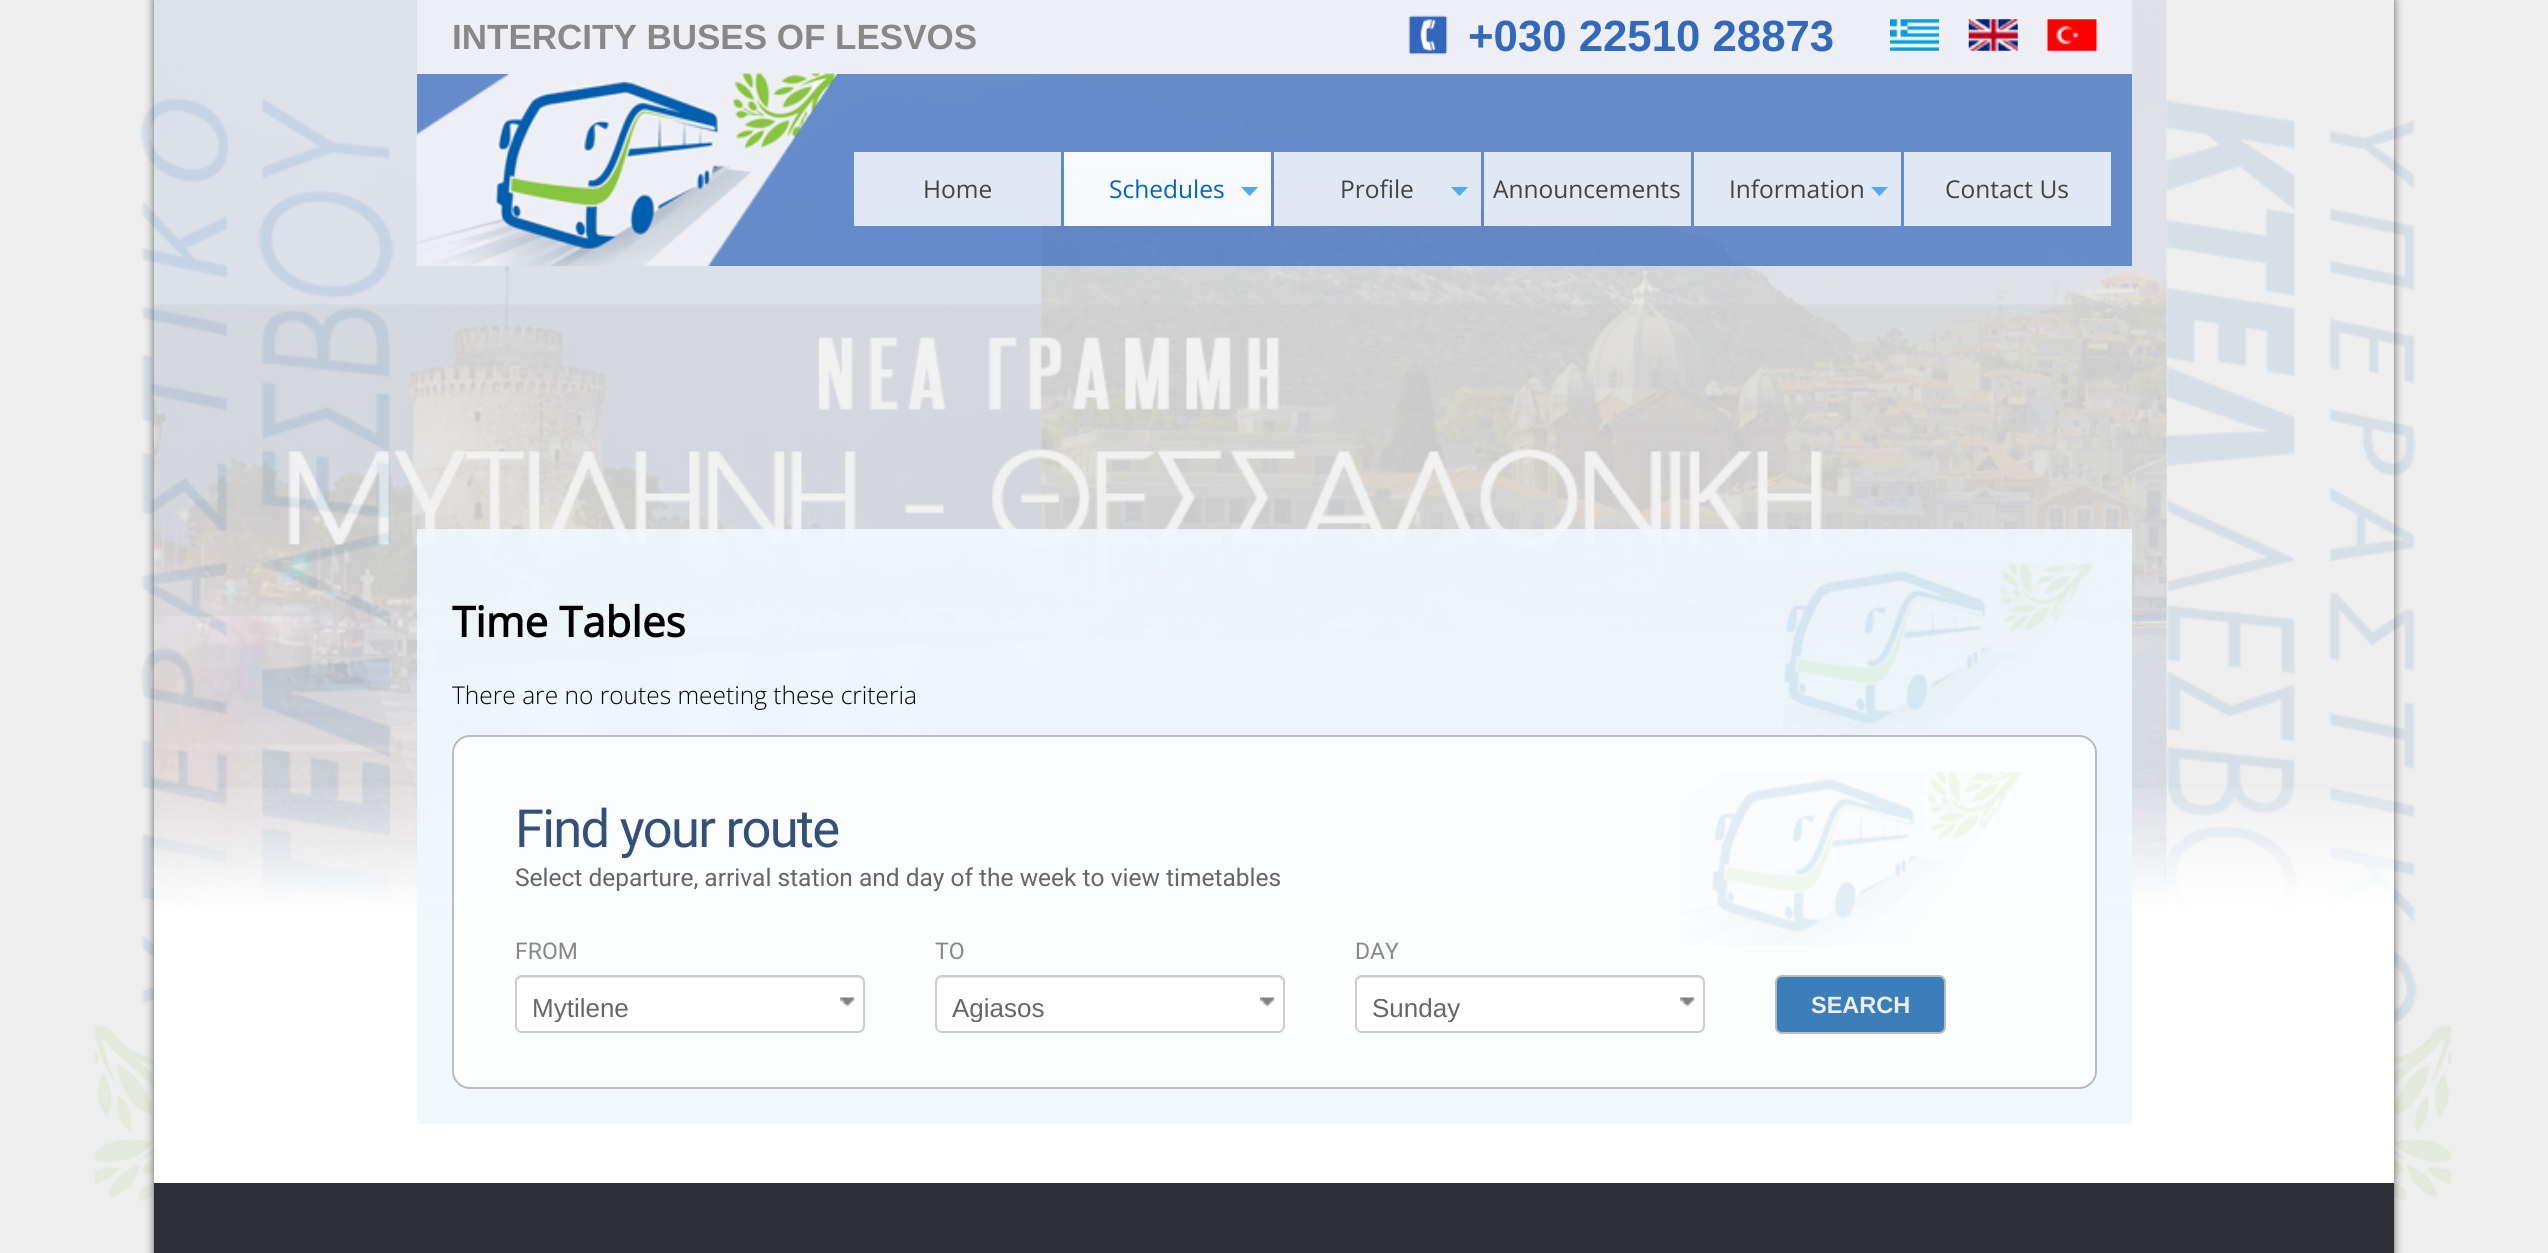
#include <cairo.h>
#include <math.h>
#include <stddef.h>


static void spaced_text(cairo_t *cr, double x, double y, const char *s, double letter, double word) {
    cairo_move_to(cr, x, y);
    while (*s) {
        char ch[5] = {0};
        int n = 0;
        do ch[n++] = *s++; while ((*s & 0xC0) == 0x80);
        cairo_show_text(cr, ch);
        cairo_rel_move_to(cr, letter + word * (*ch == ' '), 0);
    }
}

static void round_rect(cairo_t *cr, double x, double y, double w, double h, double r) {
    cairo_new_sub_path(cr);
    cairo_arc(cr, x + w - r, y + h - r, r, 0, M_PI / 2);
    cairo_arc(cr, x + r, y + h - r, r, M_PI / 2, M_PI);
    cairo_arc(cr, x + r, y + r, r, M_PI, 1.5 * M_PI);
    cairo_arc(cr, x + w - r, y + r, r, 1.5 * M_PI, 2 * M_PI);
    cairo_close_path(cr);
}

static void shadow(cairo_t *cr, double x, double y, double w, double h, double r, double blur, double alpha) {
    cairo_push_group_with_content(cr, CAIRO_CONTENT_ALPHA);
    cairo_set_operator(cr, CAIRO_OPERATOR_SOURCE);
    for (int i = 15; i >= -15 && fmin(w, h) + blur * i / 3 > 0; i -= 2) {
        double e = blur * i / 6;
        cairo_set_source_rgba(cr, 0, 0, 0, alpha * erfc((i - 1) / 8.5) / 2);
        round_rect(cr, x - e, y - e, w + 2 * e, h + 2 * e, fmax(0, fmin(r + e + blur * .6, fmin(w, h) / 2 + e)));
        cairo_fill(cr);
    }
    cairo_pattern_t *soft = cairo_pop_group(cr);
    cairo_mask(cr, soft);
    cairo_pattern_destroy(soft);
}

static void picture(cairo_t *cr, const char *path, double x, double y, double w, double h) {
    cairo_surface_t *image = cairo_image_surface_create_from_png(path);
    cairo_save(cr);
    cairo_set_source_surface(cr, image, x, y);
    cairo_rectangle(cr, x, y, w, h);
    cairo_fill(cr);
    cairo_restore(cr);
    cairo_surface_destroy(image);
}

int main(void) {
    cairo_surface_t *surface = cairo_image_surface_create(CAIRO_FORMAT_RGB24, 2548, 1253);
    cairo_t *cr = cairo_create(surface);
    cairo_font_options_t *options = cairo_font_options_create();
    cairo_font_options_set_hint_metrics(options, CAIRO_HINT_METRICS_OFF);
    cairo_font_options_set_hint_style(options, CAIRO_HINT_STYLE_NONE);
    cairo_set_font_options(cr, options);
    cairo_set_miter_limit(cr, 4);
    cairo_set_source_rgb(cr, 0.933, 0.933, 0.933);
    cairo_paint(cr);
    picture(cr, "img1.png", 94, 98, 2358, 1155);
    picture(cr, "img2.png", 154, 0, 2013, 918);
    cairo_save(cr);
    cairo_set_fill_rule(cr, CAIRO_FILL_RULE_EVEN_ODD);
    cairo_new_path(cr);
    cairo_move_to(cr, 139, 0);
    cairo_line_to(cr, 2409, 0);
    cairo_line_to(cr, 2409, 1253);
    cairo_line_to(cr, 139, 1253);
    cairo_close_path(cr);
    cairo_move_to(cr, 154, 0);
    cairo_line_to(cr, 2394, 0);
    cairo_line_to(cr, 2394, 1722);
    cairo_line_to(cr, 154, 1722);
    cairo_close_path(cr);
    cairo_clip(cr);
    cairo_set_source_rgb(cr, 0, 0, 0);
    shadow(cr, 154, 0, 2240, 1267, 0, 4.5, 0.6);
    cairo_restore(cr);
    cairo_set_source_rgb(cr, 1, 1, 1);
    cairo_rectangle(cr, 154, 1050, 2240, 133);
    cairo_fill(cr);
    picture(cr, "img3.png", 154, 788, 2240, 262);
    cairo_set_source_rgb(cr, 0.933, 0.937, 0.957);
    cairo_rectangle(cr, 417, 0, 1715, 74);
    cairo_fill(cr);
    cairo_select_font_face(cr, "Liberation Sans", CAIRO_FONT_SLANT_NORMAL, CAIRO_FONT_WEIGHT_BOLD);
    cairo_set_font_size(cr, 35);
    cairo_set_source_rgb(cr, 0.533, 0.533, 0.533);
    cairo_move_to(cr, 452, 49);
    cairo_show_text(cr, "INTERCITY BUSES OF LESVOS");
    picture(cr, "img4.png", 1408, 15, 40, 40);
    cairo_set_font_size(cr, 43.75);
    cairo_set_source_rgb(cr, 0.2, 0.412, 0.741);
    cairo_move_to(cr, 1468, 51);
    cairo_show_text(cr, "+030 22510 28873");
    picture(cr, "img5.png", 1890, 19, 49, 32);
    picture(cr, "img6.png", 1968, 19, 50, 32);
    picture(cr, "img7.png", 2047, 19, 50, 32);
    cairo_set_source_rgba(cr, 0.2, 0.412, 0.741, 0.7);
    cairo_rectangle(cr, 417, 74, 1715, 192);
    cairo_fill(cr);
    picture(cr, "img8.png", 416, 73, 423, 193);
    cairo_set_source_rgba(cr, 1, 1, 1, 0.8);
    cairo_rectangle(cr, 854, 152, 207, 74);
    cairo_fill(cr);
    cairo_select_font_face(cr, "Open Sans", CAIRO_FONT_SLANT_NORMAL, CAIRO_FONT_WEIGHT_NORMAL);
    cairo_set_font_size(cr, 24.5);
    cairo_set_source_rgb(cr, 0.267, 0.267, 0.267);
    cairo_move_to(cr, 923, 198);
    cairo_show_text(cr, "Home");
    cairo_set_source_rgba(cr, 1, 1, 1, 0.95);
    cairo_rectangle(cr, 1064, 152, 207, 74);
    cairo_fill(cr);
    cairo_set_source_rgb(cr, 0, 0.392, 0.757);
    cairo_move_to(cr, 1109, 198);
    cairo_show_text(cr, "Schedules");
    cairo_set_source_rgb(cr, 0.306, 0.667, 0.976);
    cairo_new_path(cr);
    cairo_move_to(cr, 1241, 187);
    cairo_line_to(cr, 1258, 187);
    cairo_line_to(cr, 1249.5, 196);
    cairo_close_path(cr);
    cairo_fill(cr);
    cairo_set_source_rgba(cr, 1, 1, 1, 0.8);
    cairo_rectangle(cr, 1274, 152, 207, 74);
    cairo_fill(cr);
    cairo_set_source_rgb(cr, 0.267, 0.267, 0.267);
    cairo_move_to(cr, 1340, 198);
    cairo_show_text(cr, "Profile");
    cairo_set_source_rgb(cr, 0.306, 0.667, 0.976);
    cairo_new_path(cr);
    cairo_move_to(cr, 1451, 187);
    cairo_line_to(cr, 1468, 187);
    cairo_line_to(cr, 1459.5, 196);
    cairo_close_path(cr);
    cairo_fill(cr);
    cairo_set_source_rgba(cr, 1, 1, 1, 0.8);
    cairo_rectangle(cr, 1484, 152, 207, 74);
    cairo_fill(cr);
    cairo_set_source_rgb(cr, 0.267, 0.267, 0.267);
    cairo_move_to(cr, 1493, 198);
    cairo_show_text(cr, "Announcements");
    cairo_set_source_rgb(cr, 0.878, 0.91, 0.957);
    cairo_rectangle(cr, 1694, 152, 207, 74);
    cairo_fill(cr);
    cairo_set_source_rgb(cr, 0.267, 0.267, 0.267);
    cairo_move_to(cr, 1729, 198);
    cairo_show_text(cr, "Information");
    cairo_set_source_rgb(cr, 0.306, 0.667, 0.976);
    cairo_new_path(cr);
    cairo_move_to(cr, 1871, 187);
    cairo_line_to(cr, 1888, 187);
    cairo_line_to(cr, 1879.5, 196);
    cairo_close_path(cr);
    cairo_fill(cr);
    cairo_set_source_rgb(cr, 0.878, 0.91, 0.957);
    cairo_rectangle(cr, 1904, 152, 207, 74);
    cairo_fill(cr);
    cairo_set_source_rgb(cr, 0.267, 0.267, 0.267);
    cairo_move_to(cr, 1945, 198);
    cairo_show_text(cr, "Contact Us");
    cairo_set_source_rgba(cr, 1, 1, 1, 0.9);
    cairo_rectangle(cr, 417, 529, 1715, 377);
    cairo_fill(cr);
    cairo_set_source_rgba(cr, 0.784, 0.902, 0.941, 0.3);
    cairo_rectangle(cr, 417, 529, 1715, 595);
    cairo_fill(cr);
    picture(cr, "img9.png", 1783, 563, 310, 175);
    cairo_select_font_face(cr, "Open Sans", CAIRO_FONT_SLANT_NORMAL, CAIRO_FONT_WEIGHT_BOLD);
    cairo_set_font_size(cr, 42);
    cairo_set_source_rgb(cr, 0, 0, 0);
    cairo_move_to(cr, 452, 637);
    cairo_show_text(cr, "Time Tables");
    cairo_select_font_face(cr, "Open Sans Light", CAIRO_FONT_SLANT_NORMAL, CAIRO_FONT_WEIGHT_NORMAL);
    cairo_set_font_size(cr, 24.5);
    cairo_move_to(cr, 452, 704);
    cairo_show_text(cr, "There are no routes meeting these criteria");
    cairo_set_source_rgba(cr, 1, 1, 1, 0.8);
    round_rect(cr, 452, 735, 1645, 354, 18);
    cairo_fill(cr);
    picture(cr, "img10.png", 1681, 772, 342, 174);
    round_rect(cr, 453, 736, 1643, 352, 17);
    cairo_set_source_rgb(cr, 0.733, 0.733, 0.733);
    cairo_stroke(cr);
    cairo_select_font_face(cr, "Roboto", CAIRO_FONT_SLANT_NORMAL, CAIRO_FONT_WEIGHT_NORMAL);
    cairo_set_font_size(cr, 52.5);
    cairo_set_source_rgb(cr, 0.2, 0.314, 0.486);
    spaced_text(cr, 515, 847, "Find your route", -1.75, 0);
    cairo_set_font_size(cr, 24.5);
    cairo_set_source_rgb(cr, 0.4, 0.4, 0.4);
    cairo_move_to(cr, 515, 886);
    cairo_show_text(cr, "Select departure, arrival station and day of the week to view timetables");
    cairo_set_font_size(cr, 23);
    cairo_set_source_rgb(cr, 0.533, 0.533, 0.533);
    cairo_move_to(cr, 515, 959);
    cairo_show_text(cr, "FROM");
    cairo_set_source_rgb(cr, 1, 1, 1);
    round_rect(cr, 515, 975, 350, 58, 7);
    cairo_fill(cr);
    picture(cr, "img11.png", 840, 997, 15, 10);
    cairo_set_source_rgb(cr, 0.902, 0.902, 0.902);
    cairo_new_path(cr);
    cairo_move_to(cr, 522, 978);
    cairo_line_to(cr, 858, 978);
    cairo_curve_to(cr, 860, 978, 863, 981, 863, 984);
    cairo_curve_to(cr, 863, 981, 862, 977, 858, 977);
    cairo_line_to(cr, 521, 977);
    cairo_curve_to(cr, 517, 977, 516, 981, 516, 984);
    cairo_curve_to(cr, 516, 981, 519, 978, 522, 978);
    cairo_close_path(cr);
    cairo_fill(cr);
    round_rect(cr, 516, 976, 348, 56, 6);
    cairo_set_source_rgb(cr, 0.8, 0.8, 0.8);
    cairo_stroke(cr);
    cairo_save(cr);
    cairo_rectangle(cr, 532, 992, 310, 30);
    cairo_clip(cr);
    cairo_select_font_face(cr, "Liberation Sans", CAIRO_FONT_SLANT_NORMAL, CAIRO_FONT_WEIGHT_NORMAL);
    cairo_set_font_size(cr, 26);
    cairo_set_source_rgb(cr, 0.4, 0.4, 0.4);
    cairo_move_to(cr, 532, 1017);
    cairo_show_text(cr, "Mytilene");
    cairo_restore(cr);
    cairo_set_source_rgb(cr, 0.533, 0.533, 0.533);
    cairo_move_to(cr, 935, 959);
    cairo_show_text(cr, "TO");
    cairo_set_source_rgb(cr, 1, 1, 1);
    round_rect(cr, 935, 975, 350, 58, 7);
    cairo_fill(cr);
    picture(cr, "img12.png", 1260, 997, 15, 10);
    cairo_set_source_rgb(cr, 0.902, 0.902, 0.902);
    cairo_new_path(cr);
    cairo_move_to(cr, 942, 978);
    cairo_line_to(cr, 1278, 978);
    cairo_curve_to(cr, 1280, 978, 1283, 981, 1283, 984);
    cairo_curve_to(cr, 1283, 981, 1282, 977, 1278, 977);
    cairo_line_to(cr, 941, 977);
    cairo_curve_to(cr, 937, 977, 936, 981, 936, 984);
    cairo_curve_to(cr, 936, 981, 939, 978, 942, 978);
    cairo_close_path(cr);
    cairo_fill(cr);
    round_rect(cr, 936, 976, 348, 56, 6);
    cairo_set_source_rgb(cr, 0.8, 0.8, 0.8);
    cairo_stroke(cr);
    cairo_save(cr);
    cairo_rectangle(cr, 952, 992, 310, 30);
    cairo_clip(cr);
    cairo_select_font_face(cr, "Liberation Sans", CAIRO_FONT_SLANT_NORMAL, CAIRO_FONT_WEIGHT_NORMAL);
    cairo_set_font_size(cr, 26);
    cairo_set_source_rgb(cr, 0.4, 0.4, 0.4);
    cairo_move_to(cr, 952, 1017);
    cairo_show_text(cr, "Agiasos");
    cairo_restore(cr);
    cairo_set_source_rgb(cr, 0.533, 0.533, 0.533);
    cairo_move_to(cr, 1355, 959);
    cairo_show_text(cr, "DAY");
    cairo_set_source_rgb(cr, 1, 1, 1);
    round_rect(cr, 1355, 975, 350, 58, 7);
    cairo_fill(cr);
    picture(cr, "img11.png", 1680, 997, 15, 10);
    cairo_set_source_rgb(cr, 0.902, 0.902, 0.902);
    cairo_new_path(cr);
    cairo_move_to(cr, 1362, 978);
    cairo_line_to(cr, 1698, 978);
    cairo_curve_to(cr, 1700, 978, 1703, 981, 1703, 984);
    cairo_curve_to(cr, 1703, 981, 1702, 977, 1698, 977);
    cairo_line_to(cr, 1361, 977);
    cairo_curve_to(cr, 1357, 977, 1356, 981, 1356, 984);
    cairo_curve_to(cr, 1356, 981, 1359, 978, 1362, 978);
    cairo_close_path(cr);
    cairo_fill(cr);
    round_rect(cr, 1356, 976, 348, 56, 6);
    cairo_set_source_rgb(cr, 0.8, 0.8, 0.8);
    cairo_stroke(cr);
    cairo_save(cr);
    cairo_rectangle(cr, 1372, 992, 310, 30);
    cairo_clip(cr);
    cairo_select_font_face(cr, "Liberation Sans", CAIRO_FONT_SLANT_NORMAL, CAIRO_FONT_WEIGHT_NORMAL);
    cairo_set_font_size(cr, 26);
    cairo_set_source_rgb(cr, 0.4, 0.4, 0.4);
    cairo_move_to(cr, 1372, 1017);
    cairo_show_text(cr, "Sunday");
    cairo_restore(cr);
    cairo_set_source_rgb(cr, 0.227, 0.498, 0.729);
    round_rect(cr, 1776, 976, 169, 57, 6);
    cairo_fill_preserve(cr);
    cairo_set_source_rgb(cr, 0.733, 0.733, 0.733);
    cairo_stroke(cr);
    cairo_select_font_face(cr, "Liberation Sans", CAIRO_FONT_SLANT_NORMAL, CAIRO_FONT_WEIGHT_BOLD);
    cairo_set_font_size(cr, 23.5);
    cairo_set_source_rgb(cr, 0.933, 0.933, 0.933);
    cairo_move_to(cr, 1811, 1013);
    cairo_show_text(cr, "SEARCH");
    cairo_set_source_rgb(cr, 0.18, 0.184, 0.212);
    cairo_rectangle(cr, 154, 1183, 2240, 70);
    cairo_fill(cr);
    cairo_surface_write_to_png(surface, "page.png");
    cairo_font_options_destroy(options);
    cairo_destroy(cr);
    cairo_surface_destroy(surface);
    return 0;
}
